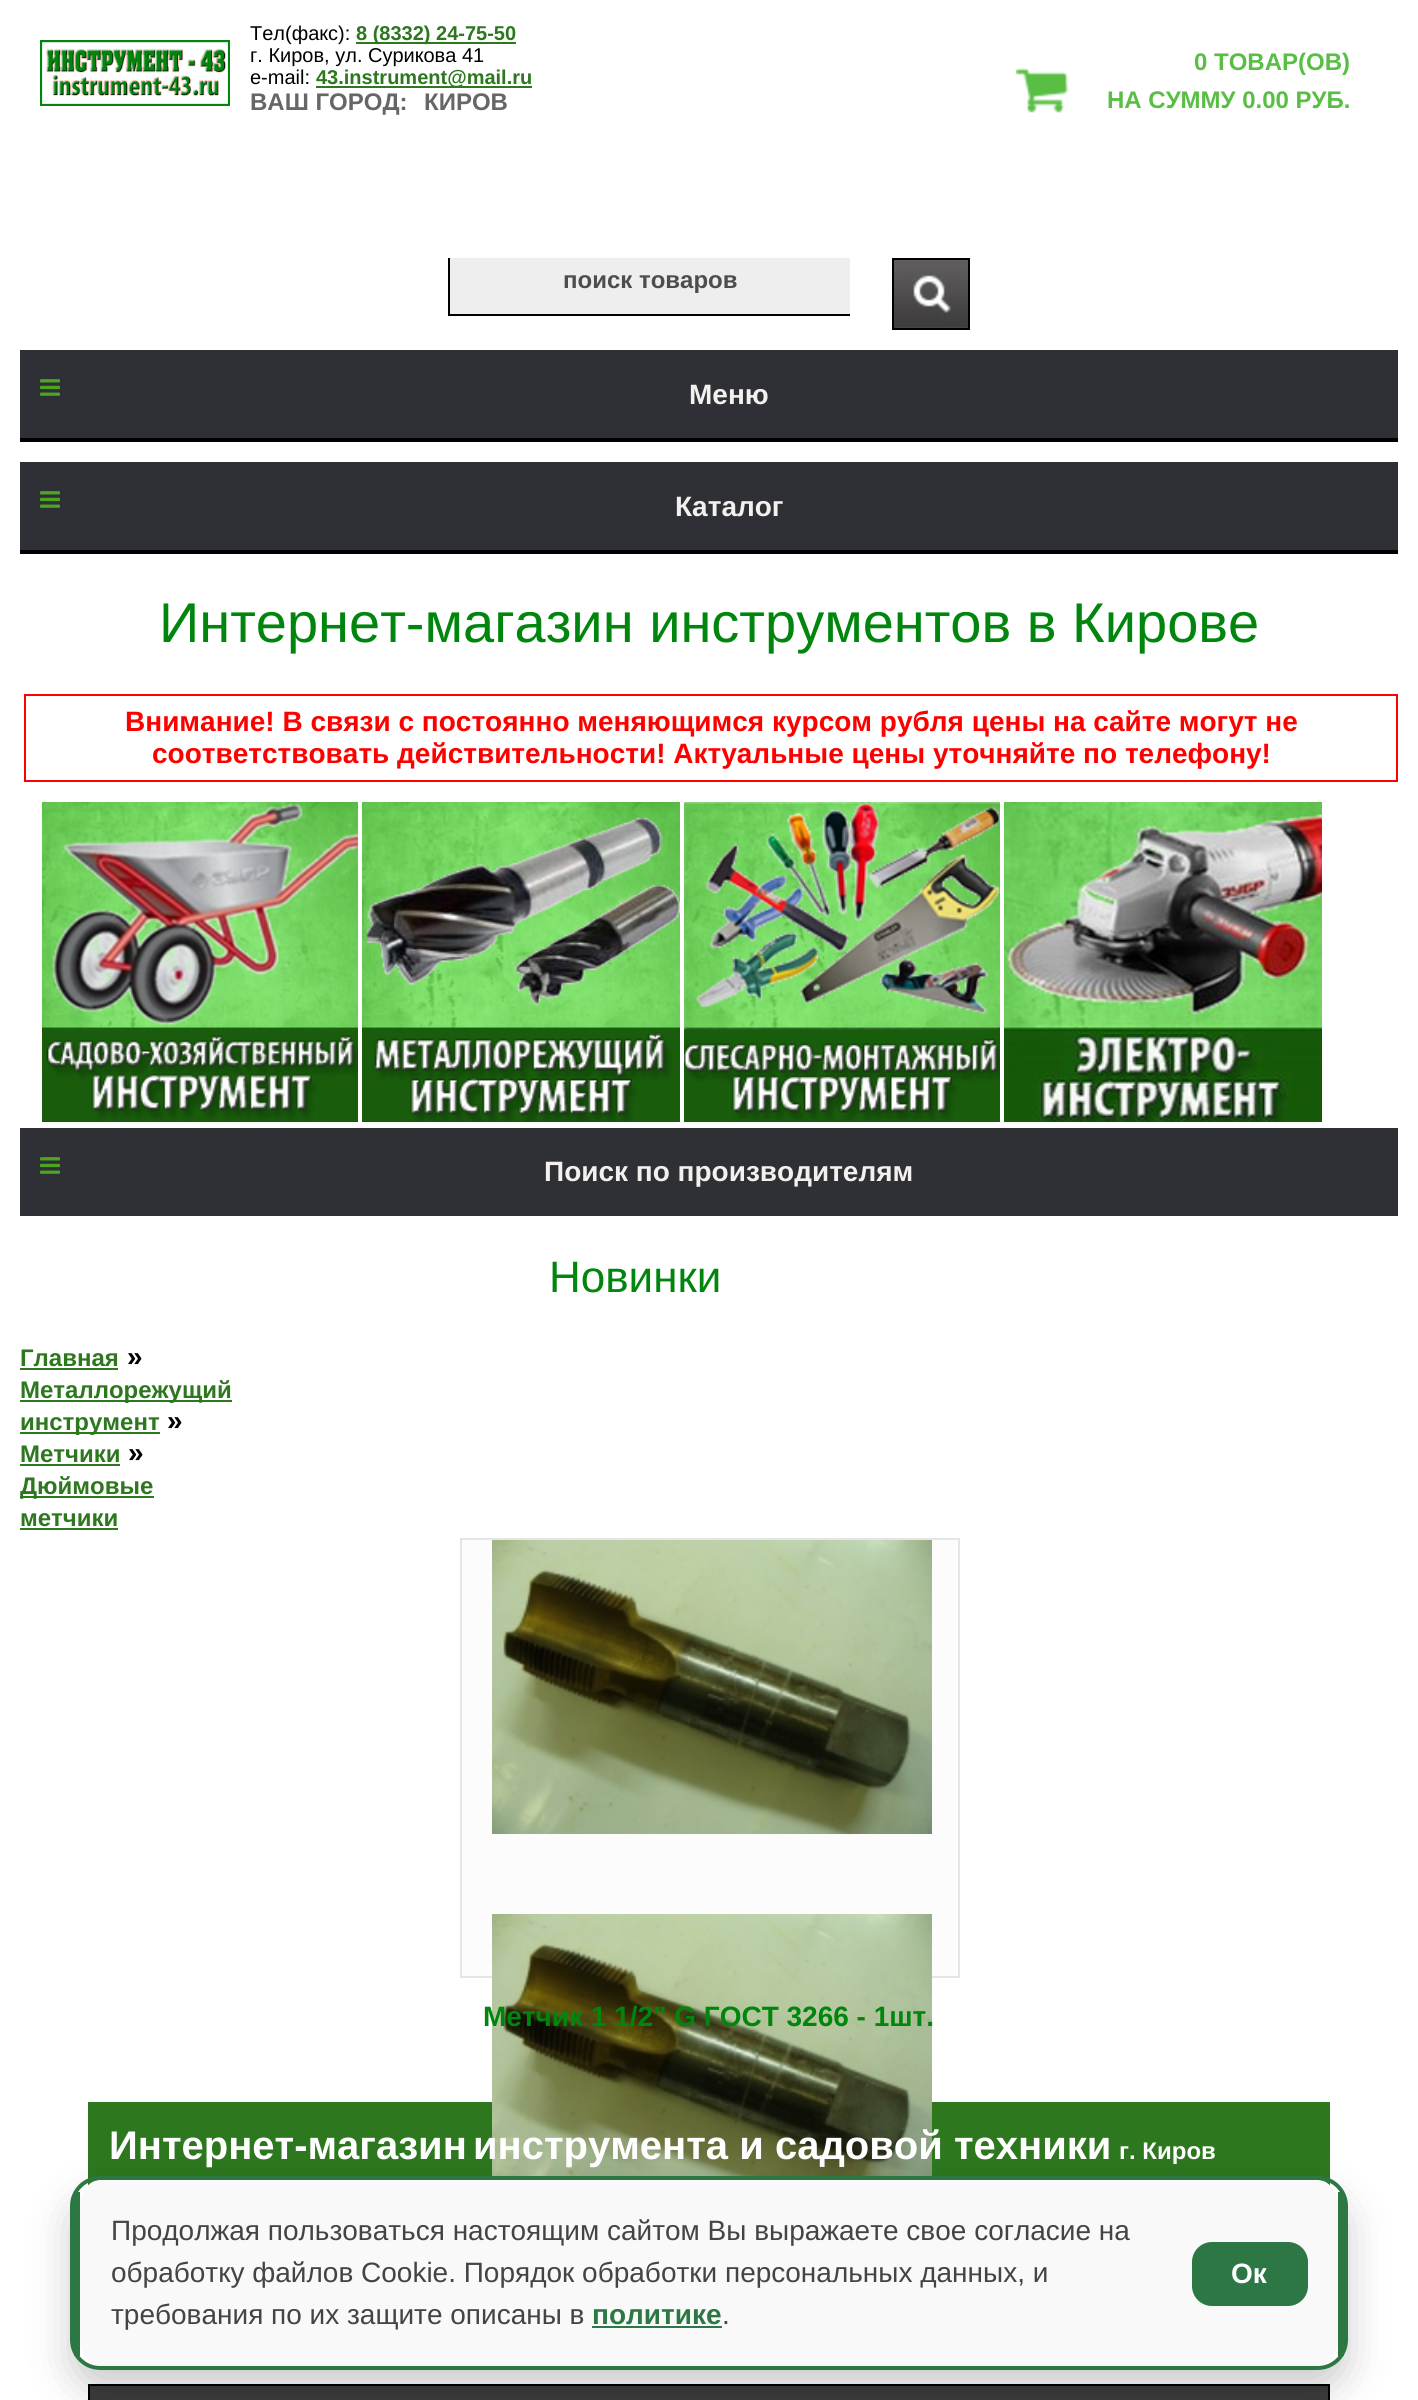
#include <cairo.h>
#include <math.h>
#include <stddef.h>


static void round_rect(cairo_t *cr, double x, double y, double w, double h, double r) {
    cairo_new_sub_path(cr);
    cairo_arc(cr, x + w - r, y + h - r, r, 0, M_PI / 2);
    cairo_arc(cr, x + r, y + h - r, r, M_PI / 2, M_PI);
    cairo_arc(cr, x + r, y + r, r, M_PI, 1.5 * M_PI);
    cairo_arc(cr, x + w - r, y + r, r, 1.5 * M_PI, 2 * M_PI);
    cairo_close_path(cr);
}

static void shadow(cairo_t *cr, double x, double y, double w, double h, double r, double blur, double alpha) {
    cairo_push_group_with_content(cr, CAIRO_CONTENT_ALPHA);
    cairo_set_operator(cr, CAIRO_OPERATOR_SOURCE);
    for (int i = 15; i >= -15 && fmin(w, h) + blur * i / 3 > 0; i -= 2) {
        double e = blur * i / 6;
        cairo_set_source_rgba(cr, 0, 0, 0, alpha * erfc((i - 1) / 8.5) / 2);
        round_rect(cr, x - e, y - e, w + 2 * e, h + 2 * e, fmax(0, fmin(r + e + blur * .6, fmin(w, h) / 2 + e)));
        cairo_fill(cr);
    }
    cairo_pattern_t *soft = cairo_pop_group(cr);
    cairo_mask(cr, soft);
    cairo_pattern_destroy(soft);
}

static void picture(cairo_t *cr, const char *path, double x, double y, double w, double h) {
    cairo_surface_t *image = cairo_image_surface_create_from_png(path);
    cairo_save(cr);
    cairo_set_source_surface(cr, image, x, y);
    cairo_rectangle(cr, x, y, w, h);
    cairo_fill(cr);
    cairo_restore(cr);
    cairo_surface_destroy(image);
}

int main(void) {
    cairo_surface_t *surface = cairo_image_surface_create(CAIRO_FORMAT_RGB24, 1418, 2400);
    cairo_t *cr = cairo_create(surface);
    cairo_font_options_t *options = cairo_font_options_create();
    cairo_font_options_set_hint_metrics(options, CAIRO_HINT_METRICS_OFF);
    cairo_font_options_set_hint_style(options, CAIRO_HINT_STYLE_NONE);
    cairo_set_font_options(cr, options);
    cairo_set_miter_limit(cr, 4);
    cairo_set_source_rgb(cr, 1, 1, 1);
    cairo_paint(cr);
    picture(cr, "img1.png", 40, 40, 190, 66);
    cairo_select_font_face(cr, "Liberation Sans", CAIRO_FONT_SLANT_NORMAL, CAIRO_FONT_WEIGHT_NORMAL);
    cairo_set_font_size(cr, 20);
    cairo_set_source_rgb(cr, 0, 0, 0);
    cairo_move_to(cr, 250, 40);
    cairo_show_text(cr, "Тел(факс):");
    cairo_set_source_rgb(cr, 0.176, 0.467, 0.122);
    cairo_rectangle(cr, 356, 42, 160, 2);
    cairo_fill(cr);
    cairo_select_font_face(cr, "Liberation Sans", CAIRO_FONT_SLANT_NORMAL, CAIRO_FONT_WEIGHT_BOLD);
    cairo_move_to(cr, 356, 40);
    cairo_show_text(cr, "8 (8332) 24-75-50");
    cairo_select_font_face(cr, "Liberation Sans", CAIRO_FONT_SLANT_NORMAL, CAIRO_FONT_WEIGHT_NORMAL);
    cairo_set_source_rgb(cr, 0, 0, 0);
    cairo_move_to(cr, 250, 62);
    cairo_show_text(cr, "г. Киров, ул. Сурикова 41");
    cairo_move_to(cr, 250, 84);
    cairo_show_text(cr, "e-mail:");
    cairo_set_source_rgb(cr, 0.176, 0.467, 0.122);
    cairo_rectangle(cr, 316, 86, 216, 2);
    cairo_fill(cr);
    cairo_select_font_face(cr, "Liberation Sans", CAIRO_FONT_SLANT_NORMAL, CAIRO_FONT_WEIGHT_BOLD);
    cairo_move_to(cr, 316, 84);
    cairo_show_text(cr, "43.instrument@mail.ru");
    picture(cr, "img2.png", 1016, 68, 52, 45);
    cairo_set_font_size(cr, 24);
    cairo_set_source_rgb(cr, 0.345, 0.745, 0.267);
    cairo_move_to(cr, 1194, 70);
    cairo_show_text(cr, "0 ТОВАР(ОВ)");
    cairo_move_to(cr, 1107, 108);
    cairo_show_text(cr, "НА СУММУ 0.00 РУБ.");
    cairo_set_source_rgb(cr, 0.4, 0.4, 0.4);
    cairo_move_to(cr, 250, 110);
    cairo_show_text(cr, "ВАШ ГОРОД:");
    cairo_move_to(cr, 424, 110);
    cairo_show_text(cr, "КИРОВ");
    cairo_set_source_rgb(cr, 0.933, 0.933, 0.933);
    cairo_rectangle(cr, 450, 258, 400, 56);
    cairo_fill(cr);
    cairo_set_source_rgb(cr, 0, 0, 0);
    cairo_rectangle(cr, 448, 314, 402, 2);
    cairo_fill(cr);
    cairo_rectangle(cr, 448, 258, 2, 58);
    cairo_fill(cr);
    cairo_set_source_rgb(cr, 0.302, 0.302, 0.302);
    cairo_move_to(cr, 563, 288);
    cairo_show_text(cr, "поиск товаров");
    picture(cr, "img3.png", 894, 260, 74, 68);
    cairo_rectangle(cr, 893, 259, 76, 70);
    cairo_set_source_rgb(cr, 0, 0, 0);
    cairo_stroke(cr);
    cairo_set_source_rgb(cr, 0.184, 0.188, 0.208);
    cairo_rectangle(cr, 20, 350, 1378, 88);
    cairo_fill(cr);
    picture(cr, "img4.png", 40, 379, 20, 17);
    cairo_set_font_size(cr, 28);
    cairo_set_source_rgb(cr, 0.953, 0.941, 0.933);
    cairo_move_to(cr, 689, 404);
    cairo_show_text(cr, "Меню");
    cairo_set_source_rgb(cr, 0, 0, 0);
    cairo_rectangle(cr, 20, 438, 1378, 4);
    cairo_fill(cr);
    cairo_set_source_rgb(cr, 0.184, 0.188, 0.208);
    cairo_rectangle(cr, 20, 462, 1378, 88);
    cairo_fill(cr);
    picture(cr, "img4.png", 40, 491, 20, 17);
    cairo_set_source_rgb(cr, 0.953, 0.941, 0.933);
    cairo_move_to(cr, 675, 516);
    cairo_show_text(cr, "Каталог");
    cairo_set_source_rgb(cr, 0, 0, 0);
    cairo_rectangle(cr, 20, 550, 1378, 4);
    cairo_fill(cr);
    cairo_select_font_face(cr, "Liberation Sans", CAIRO_FONT_SLANT_NORMAL, CAIRO_FONT_WEIGHT_NORMAL);
    cairo_set_font_size(cr, 56);
    cairo_set_source_rgb(cr, 0, 0.522, 0.051);
    cairo_move_to(cr, 159, 642);
    cairo_show_text(cr, "Интернет-магазин инструментов в Кирове");
    cairo_rectangle(cr, 25, 695, 1372, 86);
    cairo_set_source_rgb(cr, 1, 0, 0);
    cairo_stroke(cr);
    cairo_select_font_face(cr, "Liberation Sans", CAIRO_FONT_SLANT_NORMAL, CAIRO_FONT_WEIGHT_BOLD);
    cairo_set_font_size(cr, 28);
    cairo_move_to(cr, 125, 731);
    cairo_show_text(cr, "Внимание! В связи с постоянно меняющимся курсом рубля цены на сайте могут не");
    cairo_move_to(cr, 152, 763);
    cairo_show_text(cr, "соответствовать действительности! Актуальные цены уточняйте по телефону!");
    picture(cr, "img5.png", 42, 802, 316, 320);
    picture(cr, "img6.png", 362, 802, 318, 320);
    picture(cr, "img7.png", 684, 802, 316, 320);
    picture(cr, "img8.png", 1004, 802, 318, 320);
    cairo_set_source_rgb(cr, 0.184, 0.188, 0.208);
    cairo_rectangle(cr, 20, 1128, 1378, 88);
    cairo_fill(cr);
    picture(cr, "img4.png", 40, 1157, 20, 17);
    cairo_set_source_rgb(cr, 0.953, 0.941, 0.933);
    cairo_move_to(cr, 544, 1181);
    cairo_show_text(cr, "Поиск по производителям");
    cairo_select_font_face(cr, "Liberation Sans", CAIRO_FONT_SLANT_NORMAL, CAIRO_FONT_WEIGHT_NORMAL);
    cairo_set_font_size(cr, 44);
    cairo_set_source_rgb(cr, 0, 0.522, 0.051);
    cairo_move_to(cr, 549, 1292);
    cairo_show_text(cr, "Новинки");
    cairo_select_font_face(cr, "Liberation Sans", CAIRO_FONT_SLANT_NORMAL, CAIRO_FONT_WEIGHT_BOLD);
    cairo_set_font_size(cr, 24);
    cairo_set_source_rgb(cr, 0.176, 0.467, 0.122);
    cairo_move_to(cr, 20, 1366);
    cairo_show_text(cr, "Главная");
    cairo_rectangle(cr, 20, 1368, 98, 2);
    cairo_fill(cr);
    cairo_set_font_size(cr, 28);
    cairo_set_source_rgb(cr, 0, 0, 0);
    cairo_move_to(cr, 127, 1366);
    cairo_show_text(cr, "»");
    cairo_set_source_rgb(cr, 0.176, 0.467, 0.122);
    cairo_rectangle(cr, 20, 1400, 212, 2);
    cairo_fill(cr);
    cairo_set_font_size(cr, 24);
    cairo_move_to(cr, 20, 1398);
    cairo_show_text(cr, "Металлорежущий");
    cairo_rectangle(cr, 20, 1432, 140, 2);
    cairo_fill(cr);
    cairo_move_to(cr, 20, 1430);
    cairo_show_text(cr, "инструмент");
    cairo_set_font_size(cr, 28);
    cairo_set_source_rgb(cr, 0, 0, 0);
    cairo_move_to(cr, 167, 1430);
    cairo_show_text(cr, "»");
    cairo_set_font_size(cr, 24);
    cairo_set_source_rgb(cr, 0.176, 0.467, 0.122);
    cairo_move_to(cr, 20, 1462);
    cairo_show_text(cr, "Метчики");
    cairo_rectangle(cr, 20, 1464, 100, 2);
    cairo_fill(cr);
    cairo_set_font_size(cr, 28);
    cairo_set_source_rgb(cr, 0, 0, 0);
    cairo_move_to(cr, 128, 1462);
    cairo_show_text(cr, "»");
    cairo_set_source_rgb(cr, 0.176, 0.467, 0.122);
    cairo_rectangle(cr, 20, 1496, 134, 2);
    cairo_fill(cr);
    cairo_set_font_size(cr, 24);
    cairo_move_to(cr, 20, 1494);
    cairo_show_text(cr, "Дюймовые");
    cairo_move_to(cr, 20, 1526);
    cairo_show_text(cr, "метчики");
    cairo_rectangle(cr, 20, 1528, 98, 2);
    cairo_fill(cr);
    cairo_set_source_rgb(cr, 0.988, 0.988, 0.988);
    cairo_rectangle(cr, 461, 1539, 498, 438);
    cairo_fill_preserve(cr);
    cairo_set_source_rgb(cr, 0.898, 0.898, 0.898);
    cairo_stroke(cr);
    picture(cr, "img9.png", 492, 1540, 440, 294);
    cairo_set_source_rgb(cr, 0.176, 0.467, 0.122);
    cairo_rectangle(cr, 88, 2102, 1242, 84);
    cairo_fill(cr);
    picture(cr, "img10.png", 492, 1914, 440, 262);
    cairo_set_font_size(cr, 28);
    cairo_set_source_rgb(cr, 0, 0.522, 0.051);
    cairo_move_to(cr, 483, 2026);
    cairo_show_text(cr, "Метчик 1 1/2\" G ГОСТ 3266 - 1шт.");
    cairo_set_font_size(cr, 40);
    cairo_set_source_rgb(cr, 1, 1, 1);
    cairo_move_to(cr, 109, 2159);
    cairo_show_text(cr, "Интернет-магазин");
    cairo_move_to(cr, 473, 2159);
    cairo_show_text(cr, "инструмента и садовой техники");
    cairo_set_font_size(cr, 24);
    cairo_move_to(cr, 1119, 2159);
    cairo_show_text(cr, "г. Киров");
    cairo_set_source_rgb(cr, 0.239, 0.235, 0.235);
    cairo_rectangle(cr, 89, 2385, 1240, 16);
    cairo_fill_preserve(cr);
    cairo_set_source_rgb(cr, 0, 0, 0);
    cairo_stroke(cr);
    cairo_save(cr);
    cairo_set_fill_rule(cr, CAIRO_FILL_RULE_EVEN_ODD);
    cairo_new_path(cr);
    cairo_move_to(cr, 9, 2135);
    cairo_line_to(cr, 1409, 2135);
    cairo_line_to(cr, 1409, 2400);
    cairo_line_to(cr, 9, 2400);
    cairo_close_path(cr);
    cairo_move_to(cr, 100, 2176);
    cairo_line_to(cr, 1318, 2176);
    cairo_curve_to(cr, 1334.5, 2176, 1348, 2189.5, 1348, 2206);
    cairo_line_to(cr, 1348, 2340);
    cairo_curve_to(cr, 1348, 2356.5, 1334.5, 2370, 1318, 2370);
    cairo_line_to(cr, 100, 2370);
    cairo_curve_to(cr, 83.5, 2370, 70, 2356.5, 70, 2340);
    cairo_line_to(cr, 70, 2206);
    cairo_curve_to(cr, 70, 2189.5, 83.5, 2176, 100, 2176);
    cairo_close_path(cr);
    cairo_clip(cr);
    cairo_set_source_rgb(cr, 0, 0, 0);
    shadow(cr, 70, 2196, 1278, 194, 30, 20, 0.2);
    cairo_restore(cr);
    cairo_set_source_rgb(cr, 0.976, 0.976, 0.976);
    cairo_new_path(cr);
    cairo_move_to(cr, 100, 2180);
    cairo_line_to(cr, 1318, 2180);
    cairo_curve_to(cr, 1329, 2180, 1338, 2192, 1338, 2206);
    cairo_line_to(cr, 1338, 2340);
    cairo_curve_to(cr, 1338, 2354, 1329, 2366, 1318, 2366);
    cairo_line_to(cr, 100, 2366);
    cairo_curve_to(cr, 89, 2366, 80, 2354, 80, 2340);
    cairo_line_to(cr, 80, 2206);
    cairo_curve_to(cr, 80, 2192, 89, 2180, 100, 2180);
    cairo_close_path(cr);
    cairo_fill(cr);
    round_rect(cr, 72, 2178, 1274, 190, 28);
    cairo_set_source_rgb(cr, 0.176, 0.467, 0.271);
    cairo_set_line_width(cr, 4);
    cairo_stroke(cr);
    cairo_rectangle(cr, 1338, 2192, 6, 164);
    cairo_fill(cr);
    cairo_rectangle(cr, 74, 2192, 6, 164);
    cairo_fill(cr);
    cairo_select_font_face(cr, "Liberation Sans", CAIRO_FONT_SLANT_NORMAL, CAIRO_FONT_WEIGHT_NORMAL);
    cairo_set_font_size(cr, 28);
    cairo_set_source_rgb(cr, 0.267, 0.267, 0.267);
    cairo_move_to(cr, 111, 2240);
    cairo_show_text(cr, "Продолжая пользоваться настоящим сайтом Вы выражаете свое согласие на");
    cairo_move_to(cr, 111, 2282);
    cairo_show_text(cr, "обработку файлов Cookie. Порядок обработки персональных данных, и");
    cairo_move_to(cr, 111, 2324);
    cairo_show_text(cr, "требования по их защите описаны в");
    cairo_select_font_face(cr, "Liberation Sans", CAIRO_FONT_SLANT_NORMAL, CAIRO_FONT_WEIGHT_BOLD);
    cairo_set_source_rgb(cr, 0.176, 0.467, 0.271);
    cairo_move_to(cr, 592, 2324);
    cairo_show_text(cr, "политике");
    cairo_select_font_face(cr, "Liberation Sans", CAIRO_FONT_SLANT_NORMAL, CAIRO_FONT_WEIGHT_NORMAL);
    cairo_set_source_rgb(cr, 0.267, 0.267, 0.267);
    cairo_move_to(cr, 722, 2324);
    cairo_show_text(cr, ".");
    cairo_set_source_rgb(cr, 0.176, 0.467, 0.271);
    cairo_rectangle(cr, 592, 2326, 130, 2);
    cairo_fill(cr);
    round_rect(cr, 1192, 2242, 116, 64, 20);
    cairo_fill(cr);
    cairo_select_font_face(cr, "Liberation Sans", CAIRO_FONT_SLANT_NORMAL, CAIRO_FONT_WEIGHT_BOLD);
    cairo_set_source_rgb(cr, 1, 1, 1);
    cairo_move_to(cr, 1231, 2283);
    cairo_show_text(cr, "Ок");
    cairo_surface_write_to_png(surface, "page.png");
    cairo_font_options_destroy(options);
    cairo_destroy(cr);
    cairo_surface_destroy(surface);
    return 0;
}
